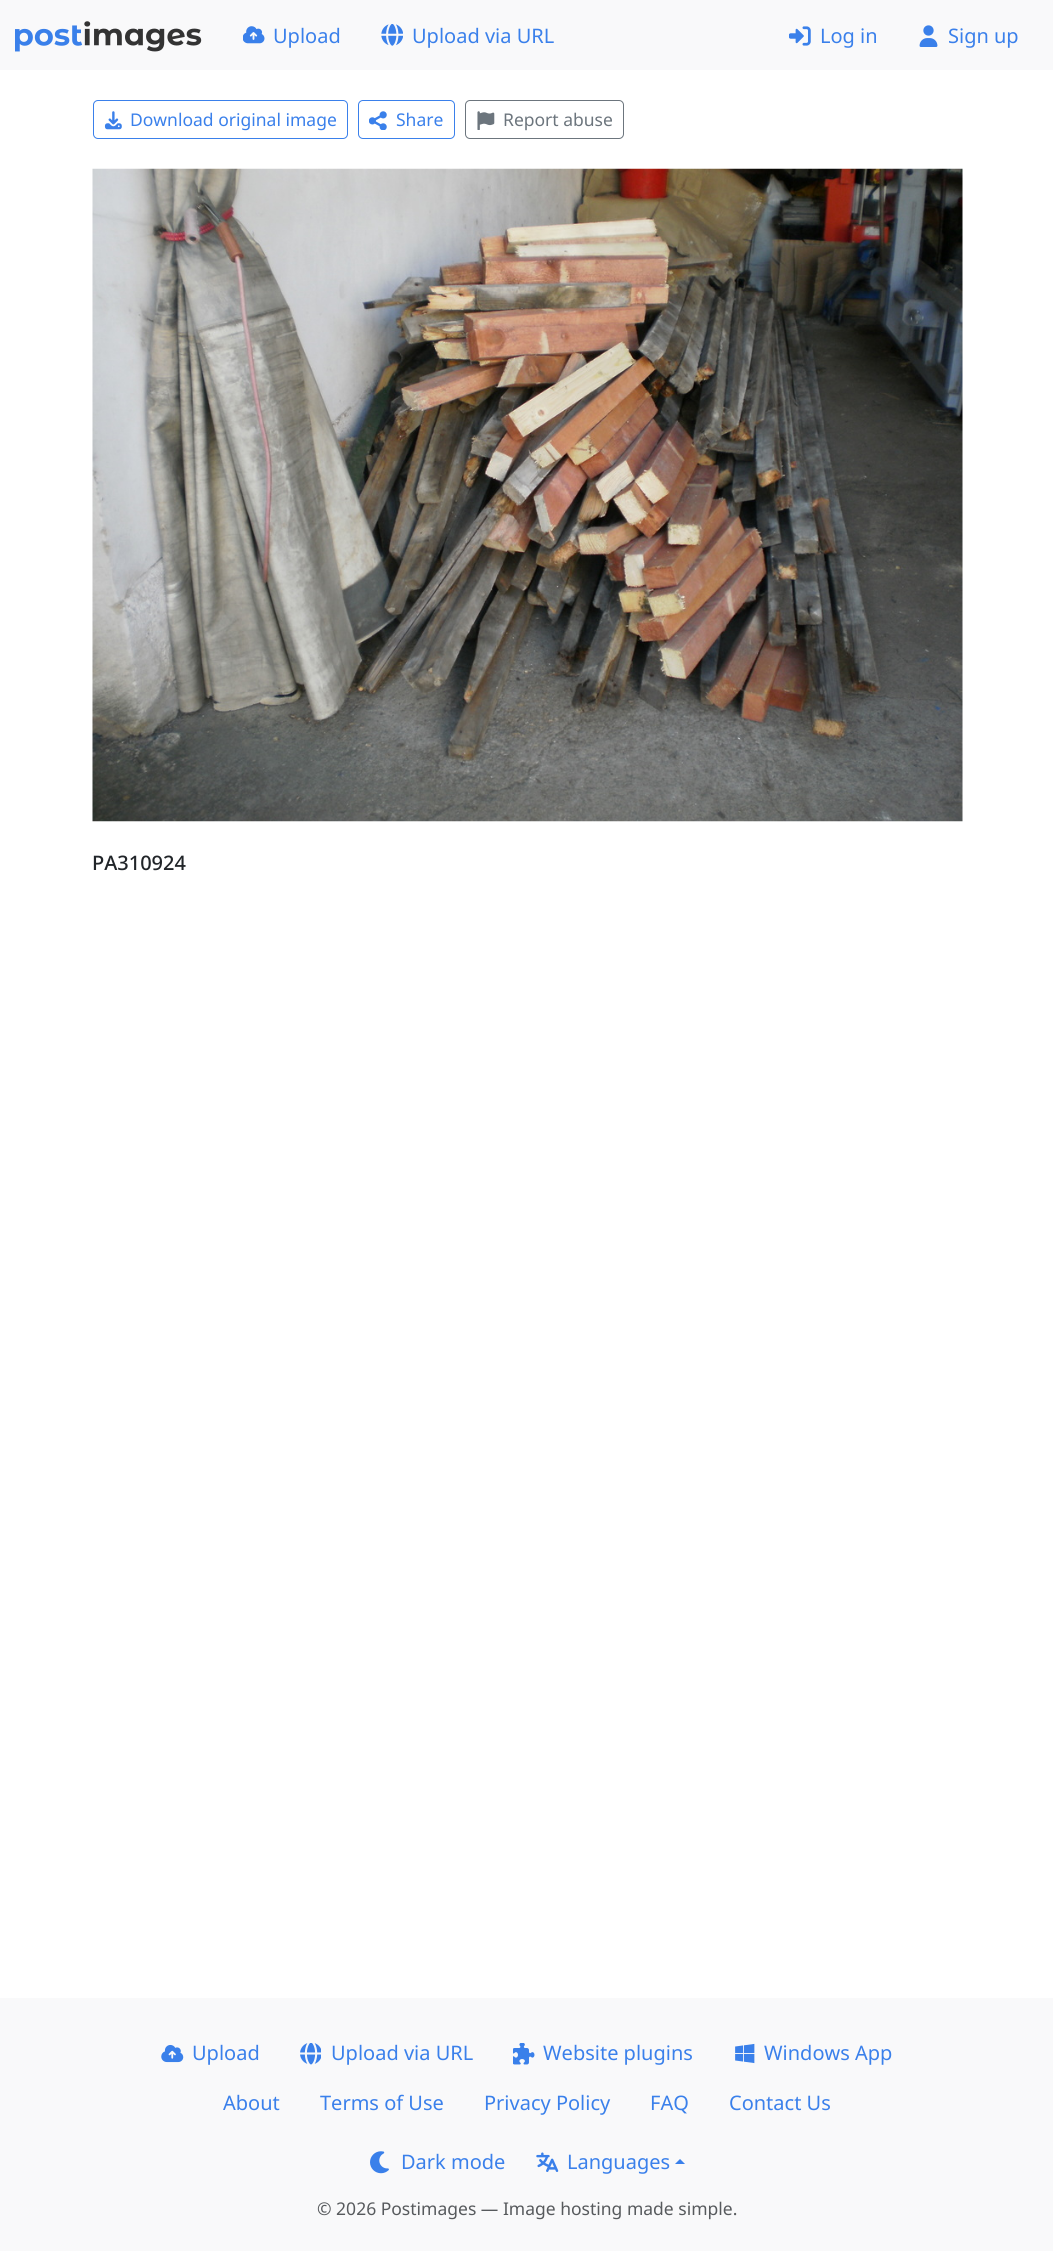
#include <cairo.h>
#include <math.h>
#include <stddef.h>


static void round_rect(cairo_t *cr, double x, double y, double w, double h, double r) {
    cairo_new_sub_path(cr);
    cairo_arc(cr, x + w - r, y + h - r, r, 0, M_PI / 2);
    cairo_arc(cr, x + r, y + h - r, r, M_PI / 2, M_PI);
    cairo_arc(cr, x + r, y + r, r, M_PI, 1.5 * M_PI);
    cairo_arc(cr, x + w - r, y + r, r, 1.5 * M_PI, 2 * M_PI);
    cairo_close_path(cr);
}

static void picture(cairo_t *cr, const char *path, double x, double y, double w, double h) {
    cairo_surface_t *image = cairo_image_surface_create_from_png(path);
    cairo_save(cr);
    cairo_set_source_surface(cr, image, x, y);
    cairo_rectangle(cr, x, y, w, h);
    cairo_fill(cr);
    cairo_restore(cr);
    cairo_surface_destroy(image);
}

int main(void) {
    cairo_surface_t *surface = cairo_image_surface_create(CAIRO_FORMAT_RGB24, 1053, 2251);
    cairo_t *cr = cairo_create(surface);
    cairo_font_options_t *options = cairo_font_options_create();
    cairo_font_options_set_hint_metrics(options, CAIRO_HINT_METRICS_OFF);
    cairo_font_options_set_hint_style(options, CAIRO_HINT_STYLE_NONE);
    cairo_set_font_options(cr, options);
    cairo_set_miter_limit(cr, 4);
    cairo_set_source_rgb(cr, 1, 1, 1);
    cairo_paint(cr);
    cairo_set_source_rgb(cr, 0.973, 0.976, 0.98);
    cairo_rectangle(cr, 0, 0, 1053, 70);
    cairo_fill(cr);
    picture(cr, "img1.png", 15, 21, 187, 31);
    picture(cr, "img2.png", 243, 26, 22, 18);
    cairo_select_font_face(cr, "Noto Sans", CAIRO_FONT_SLANT_NORMAL, CAIRO_FONT_WEIGHT_NORMAL);
    cairo_set_font_size(cr, 20);
    cairo_set_source_rgb(cr, 0.227, 0.502, 0.918);
    cairo_move_to(cr, 273, 43);
    cairo_show_text(cr, "Upload");
    picture(cr, "img3.png", 381, 24, 22, 22);
    cairo_move_to(cr, 412, 43);
    cairo_show_text(cr, "Upload via URL");
    picture(cr, "img4.png", 789, 26, 22, 20);
    cairo_move_to(cr, 820, 43);
    cairo_show_text(cr, "Log in");
    picture(cr, "img5.png", 919, 25, 19, 22);
    cairo_move_to(cr, 948, 43);
    cairo_show_text(cr, "Sign up");
    round_rect(cr, 93.5, 100.5, 254, 38, 4.5);
    cairo_set_line_width(cr, 1);
    cairo_stroke(cr);
    picture(cr, "img6.png", 104, 111, 18, 19);
    cairo_set_font_size(cr, 17.5);
    cairo_move_to(cr, 130, 126);
    cairo_show_text(cr, "Download original image");
    round_rect(cr, 358.5, 100.5, 96, 38, 4.5);
    cairo_stroke(cr);
    picture(cr, "img7.png", 369, 111, 18, 19);
    cairo_move_to(cr, 396, 126);
    cairo_show_text(cr, "Share");
    round_rect(cr, 465.5, 100.5, 158, 38, 4.5);
    cairo_set_source_rgb(cr, 0.424, 0.459, 0.49);
    cairo_stroke(cr);
    picture(cr, "img8.png", 477, 111, 18, 19);
    cairo_move_to(cr, 503, 126);
    cairo_show_text(cr, "Report abuse");
    picture(cr, "img9.png", 92, 168, 871, 654);
    cairo_select_font_face(cr, "Noto Sans Medium", CAIRO_FONT_SLANT_NORMAL, CAIRO_FONT_WEIGHT_NORMAL);
    cairo_set_font_size(cr, 20);
    cairo_set_source_rgb(cr, 0.129, 0.145, 0.161);
    cairo_move_to(cr, 92, 870);
    cairo_show_text(cr, "PA310924");
    cairo_set_source_rgb(cr, 0.973, 0.976, 0.98);
    cairo_rectangle(cr, 0, 1998, 1053, 253);
    cairo_fill(cr);
    picture(cr, "img10.png", 161, 2044, 23, 19);
    cairo_select_font_face(cr, "Noto Sans", CAIRO_FONT_SLANT_NORMAL, CAIRO_FONT_WEIGHT_NORMAL);
    cairo_set_source_rgb(cr, 0.227, 0.502, 0.918);
    cairo_move_to(cr, 192, 2060);
    cairo_show_text(cr, "Upload");
    picture(cr, "img11.png", 300, 2043, 21, 22);
    cairo_move_to(cr, 331, 2060);
    cairo_show_text(cr, "Upload via URL");
    picture(cr, "img12.png", 513, 2043, 22, 22);
    cairo_move_to(cr, 543, 2060);
    cairo_show_text(cr, "Website plugins");
    picture(cr, "img13.png", 735, 2043, 20, 21);
    cairo_move_to(cr, 764, 2060);
    cairo_show_text(cr, "Windows App");
    cairo_move_to(cr, 223, 2110);
    cairo_show_text(cr, "About");
    cairo_move_to(cr, 320, 2110);
    cairo_show_text(cr, "Terms of Use");
    cairo_move_to(cr, 484, 2110);
    cairo_show_text(cr, "Privacy Policy");
    cairo_move_to(cr, 650, 2110);
    cairo_show_text(cr, "FAQ");
    cairo_move_to(cr, 729, 2110);
    cairo_show_text(cr, "Contact Us");
    picture(cr, "img14.png", 370, 2151, 19, 23);
    cairo_move_to(cr, 401, 2169);
    cairo_show_text(cr, "Dark mode");
    picture(cr, "img15.png", 536, 2152, 23, 20);
    cairo_move_to(cr, 567, 2169);
    cairo_show_text(cr, "Languages");
    cairo_new_path(cr);
    cairo_move_to(cr, 685, 2164);
    cairo_line_to(cr, 675, 2164);
    cairo_line_to(cr, 680, 2159);
    cairo_close_path(cr);
    cairo_fill(cr);
    cairo_set_font_size(cr, 17.5);
    cairo_set_source_rgb(cr, 0.341, 0.353, 0.365);
    cairo_move_to(cr, 317, 2215);
    cairo_show_text(cr, "© 2026 Postimages — Image hosting made simple.");
    cairo_surface_write_to_png(surface, "page.png");
    cairo_font_options_destroy(options);
    cairo_destroy(cr);
    cairo_surface_destroy(surface);
    return 0;
}
